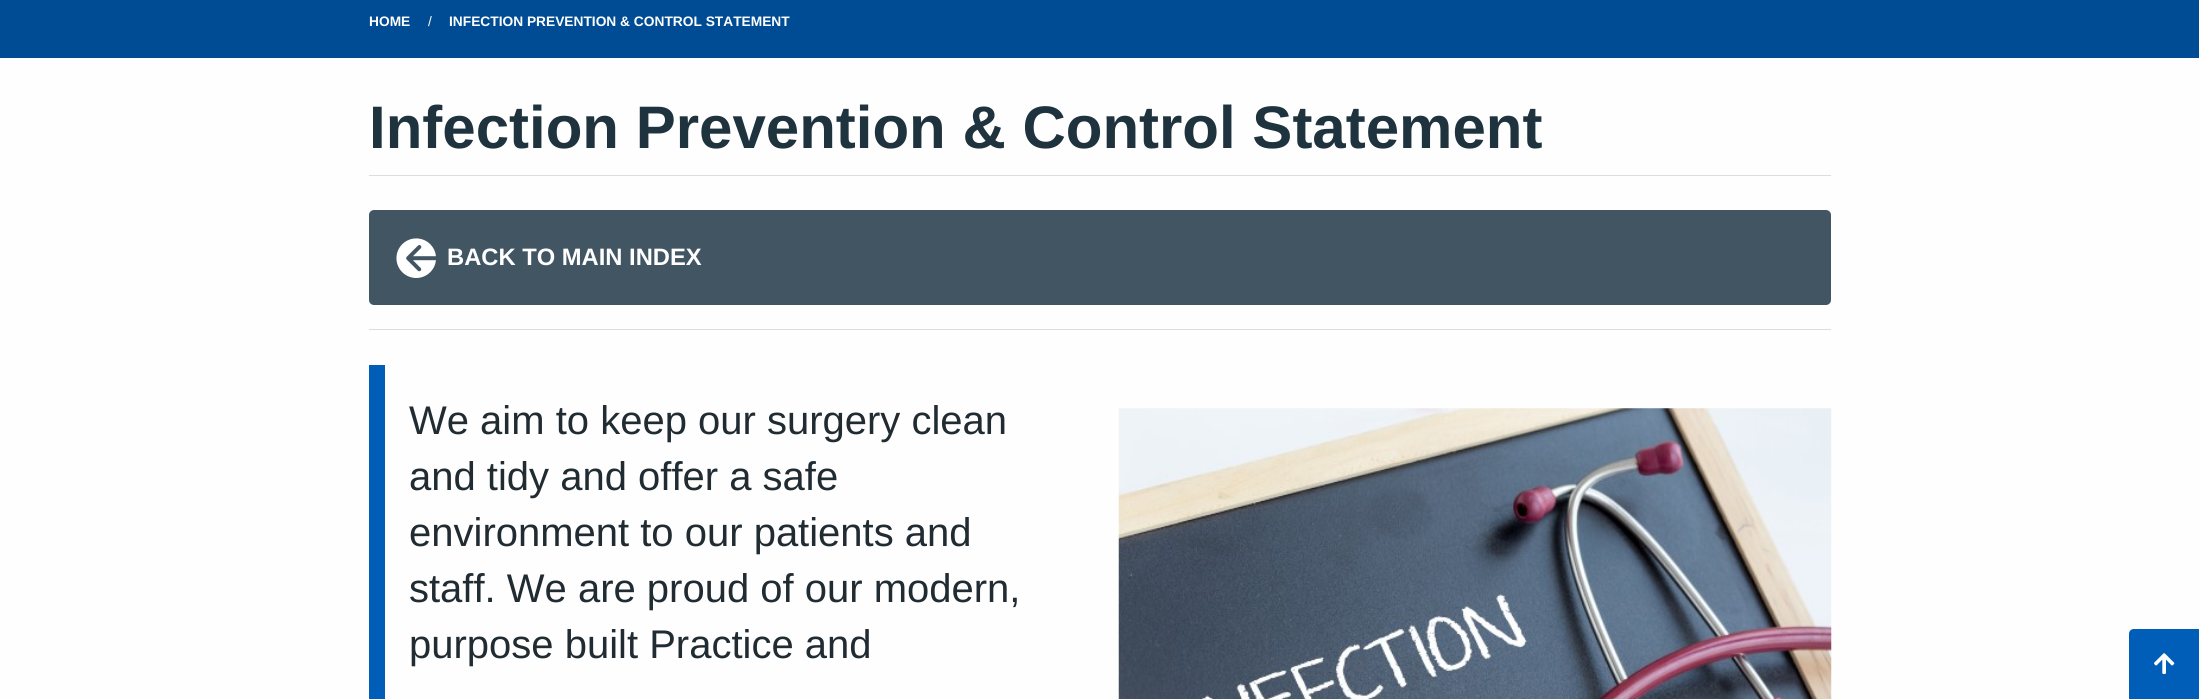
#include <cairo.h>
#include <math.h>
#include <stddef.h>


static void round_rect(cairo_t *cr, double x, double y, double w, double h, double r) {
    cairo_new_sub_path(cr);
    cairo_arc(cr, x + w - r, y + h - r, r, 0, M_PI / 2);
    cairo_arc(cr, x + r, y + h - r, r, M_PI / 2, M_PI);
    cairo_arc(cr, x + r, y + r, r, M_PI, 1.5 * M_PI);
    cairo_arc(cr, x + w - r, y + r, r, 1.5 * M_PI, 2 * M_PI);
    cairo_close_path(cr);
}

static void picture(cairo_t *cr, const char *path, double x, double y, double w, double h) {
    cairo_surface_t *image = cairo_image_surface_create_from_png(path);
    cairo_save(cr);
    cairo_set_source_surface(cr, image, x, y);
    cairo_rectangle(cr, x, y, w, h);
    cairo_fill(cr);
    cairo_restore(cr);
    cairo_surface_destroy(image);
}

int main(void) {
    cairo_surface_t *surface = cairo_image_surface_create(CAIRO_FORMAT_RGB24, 2199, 699);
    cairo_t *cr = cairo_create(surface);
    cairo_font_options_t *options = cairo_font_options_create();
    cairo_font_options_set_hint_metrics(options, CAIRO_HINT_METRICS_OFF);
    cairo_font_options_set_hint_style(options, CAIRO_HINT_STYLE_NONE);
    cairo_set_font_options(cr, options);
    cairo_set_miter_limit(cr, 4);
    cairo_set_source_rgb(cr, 0, 0.298, 0.58);
    cairo_paint(cr);
    cairo_select_font_face(cr, "Liberation Sans", CAIRO_FONT_SLANT_NORMAL, CAIRO_FONT_WEIGHT_BOLD);
    cairo_set_font_size(cr, 13.75);
    cairo_set_source_rgb(cr, 0.996, 0.996, 0.996);
    cairo_move_to(cr, 369, 26);
    cairo_show_text(cr, "HOME");
    cairo_select_font_face(cr, "Liberation Sans", CAIRO_FONT_SLANT_NORMAL, CAIRO_FONT_WEIGHT_NORMAL);
    cairo_move_to(cr, 428, 26);
    cairo_show_text(cr, "/");
    cairo_select_font_face(cr, "Liberation Sans", CAIRO_FONT_SLANT_NORMAL, CAIRO_FONT_WEIGHT_BOLD);
    cairo_move_to(cr, 449, 26);
    cairo_show_text(cr, "INFECTION PREVENTION & CONTROL STATEMENT");
    cairo_rectangle(cr, 0, 58, 2199, 641);
    cairo_fill(cr);
    cairo_set_font_size(cr, 60);
    cairo_set_source_rgb(cr, 0.118, 0.2, 0.243);
    cairo_move_to(cr, 369, 148);
    cairo_show_text(cr, "Infection Prevention & Control Statement");
    cairo_set_source_rgb(cr, 0.867, 0.867, 0.867);
    cairo_rectangle(cr, 369, 175, 1462, 1);
    cairo_fill(cr);
    cairo_set_source_rgb(cr, 0.259, 0.333, 0.388);
    round_rect(cr, 369, 210, 1462, 95, 5);
    cairo_fill(cr);
    picture(cr, "img1.png", 396, 238, 40, 40);
    cairo_set_font_size(cr, 23.75);
    cairo_set_source_rgb(cr, 0.996, 0.996, 0.996);
    cairo_move_to(cr, 447, 265);
    cairo_show_text(cr, "BACK TO MAIN INDEX");
    cairo_set_source_rgb(cr, 0.867, 0.867, 0.867);
    cairo_rectangle(cr, 369, 329, 1462, 1);
    cairo_fill(cr);
    cairo_set_source_rgb(cr, 0, 0.369, 0.722);
    cairo_rectangle(cr, 369, 365, 16, 334);
    cairo_fill(cr);
    cairo_select_font_face(cr, "Liberation Sans", CAIRO_FONT_SLANT_NORMAL, CAIRO_FONT_WEIGHT_NORMAL);
    cairo_set_font_size(cr, 40);
    cairo_set_source_rgb(cr, 0.129, 0.169, 0.196);
    cairo_move_to(cr, 409, 434);
    cairo_show_text(cr, "We aim to keep our surgery clean");
    cairo_move_to(cr, 409, 490);
    cairo_show_text(cr, "and tidy and offer a safe");
    cairo_move_to(cr, 409, 546);
    cairo_show_text(cr, "environment to our patients and");
    cairo_move_to(cr, 409, 602);
    cairo_show_text(cr, "staff. We are proud of our modern,");
    cairo_move_to(cr, 409, 658);
    cairo_show_text(cr, "purpose built Practice and");
    picture(cr, "img2.png", 1118, 408, 714, 291);
    cairo_set_source_rgb(cr, 0, 0.369, 0.722);
    cairo_new_path(cr);
    cairo_move_to(cr, 2134, 629);
    cairo_line_to(cr, 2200, 629);
    cairo_line_to(cr, 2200, 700);
    cairo_line_to(cr, 2129, 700);
    cairo_line_to(cr, 2129, 634);
    cairo_curve_to(cr, 2129, 631, 2131, 629, 2134, 629);
    cairo_close_path(cr);
    cairo_fill(cr);
    picture(cr, "img3.png", 2154, 653, 21, 21);
    cairo_surface_write_to_png(surface, "page.png");
    cairo_font_options_destroy(options);
    cairo_destroy(cr);
    cairo_surface_destroy(surface);
    return 0;
}
